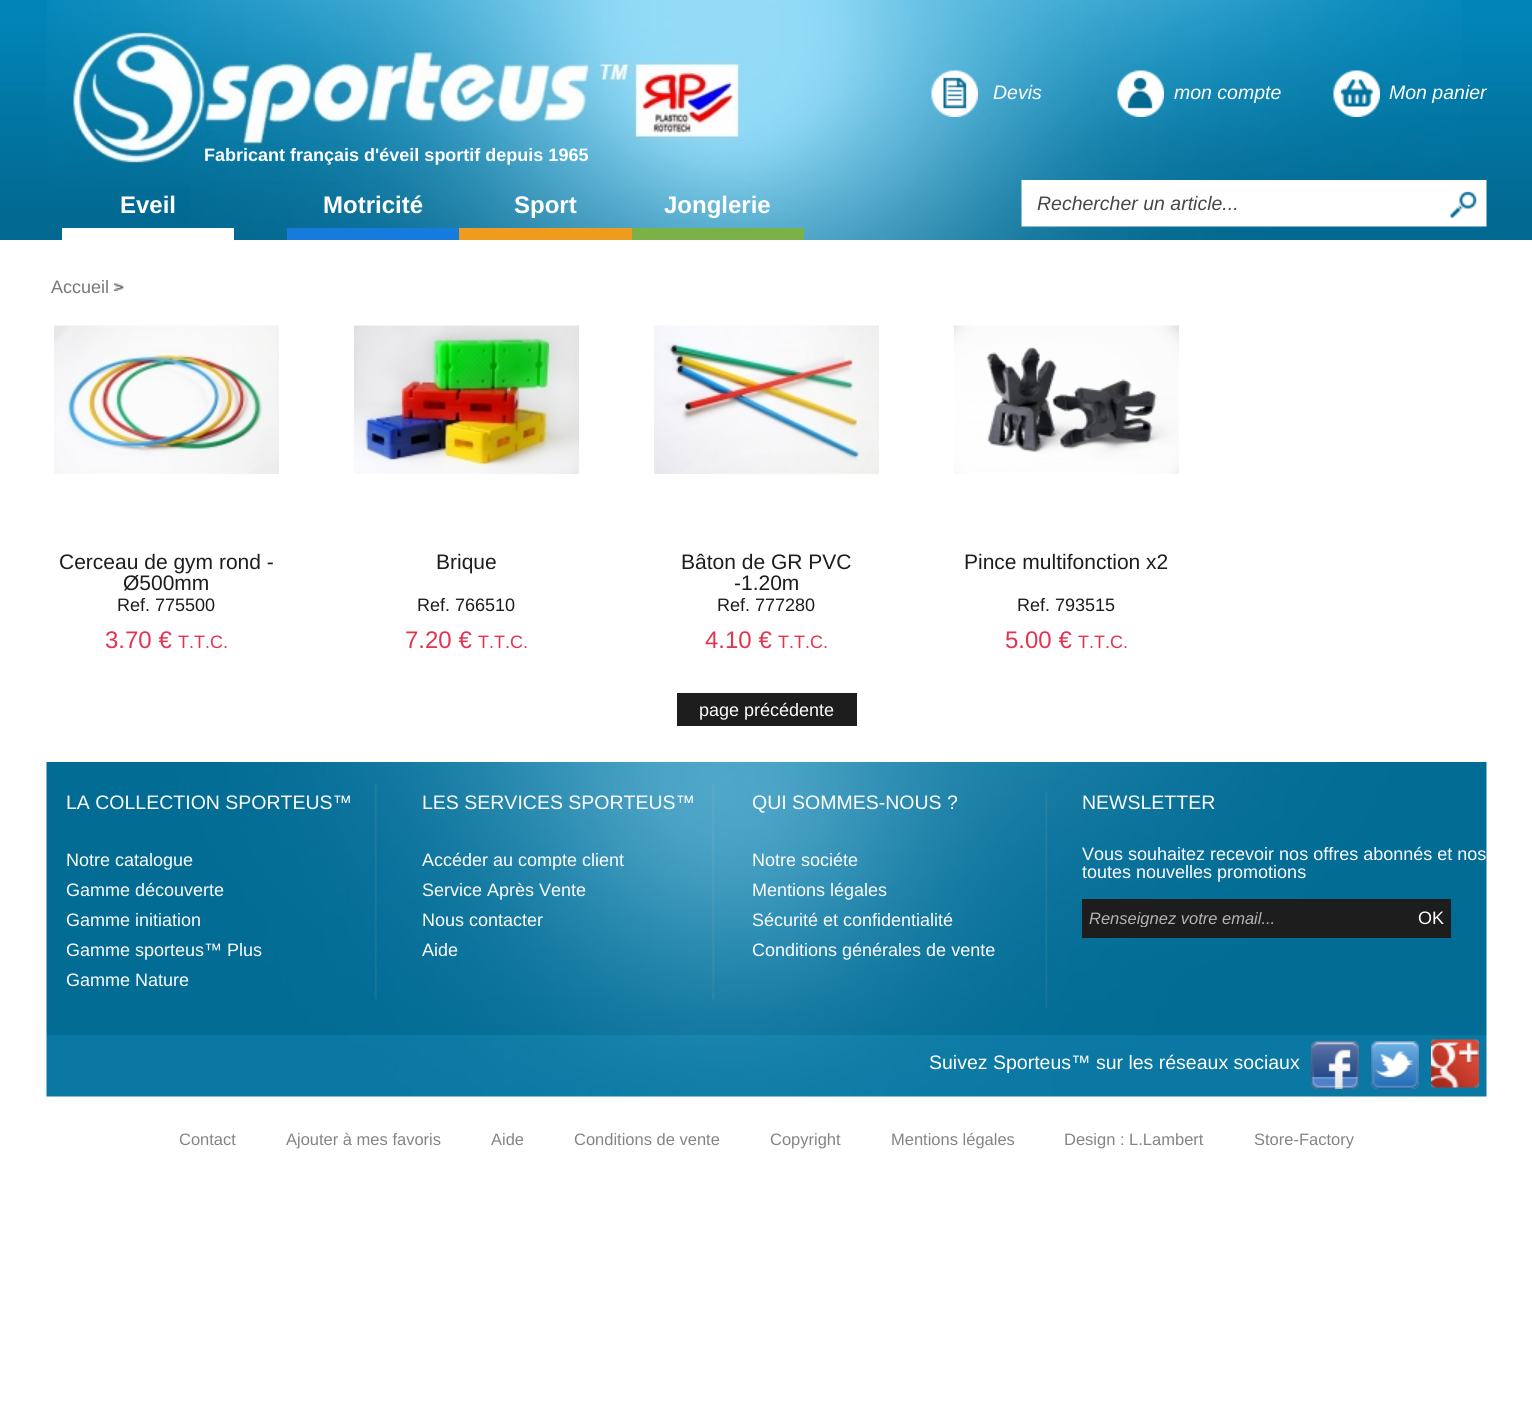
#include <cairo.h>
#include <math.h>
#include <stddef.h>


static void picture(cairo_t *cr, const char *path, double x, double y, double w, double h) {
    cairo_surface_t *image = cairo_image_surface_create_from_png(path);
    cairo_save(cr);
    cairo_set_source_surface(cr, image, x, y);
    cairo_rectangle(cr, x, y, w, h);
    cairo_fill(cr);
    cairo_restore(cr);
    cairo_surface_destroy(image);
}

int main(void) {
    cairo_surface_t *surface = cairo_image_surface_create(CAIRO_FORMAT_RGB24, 1532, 1424);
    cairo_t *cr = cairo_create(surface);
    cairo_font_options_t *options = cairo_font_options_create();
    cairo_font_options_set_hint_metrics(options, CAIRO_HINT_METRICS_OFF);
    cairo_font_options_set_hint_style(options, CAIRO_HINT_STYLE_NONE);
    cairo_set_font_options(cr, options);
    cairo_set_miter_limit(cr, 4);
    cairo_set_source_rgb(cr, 1, 1, 1);
    cairo_paint(cr);
    picture(cr, "img1.png", 0, 0, 1532, 240);
    picture(cr, "img2.png", 47, 0, 1415, 186);
    picture(cr, "img3.png", 1117, 70, 47, 47);
    cairo_select_font_face(cr, "Liberation Sans", CAIRO_FONT_SLANT_ITALIC, CAIRO_FONT_WEIGHT_NORMAL);
    cairo_set_font_size(cr, 19.5);
    cairo_set_source_rgb(cr, 1, 1, 1);
    cairo_move_to(cr, 1174, 99);
    cairo_show_text(cr, "mon compte");
    picture(cr, "img4.png", 1333, 70, 47, 47);
    cairo_move_to(cr, 1389, 99);
    cairo_show_text(cr, "Mon panier");
    picture(cr, "img5.png", 191, 186, 1082, 54);
    cairo_rectangle(cr, 62, 228, 172, 12);
    cairo_fill(cr);
    cairo_select_font_face(cr, "Liberation Sans", CAIRO_FONT_SLANT_NORMAL, CAIRO_FONT_WEIGHT_BOLD);
    cairo_set_font_size(cr, 24);
    cairo_move_to(cr, 120, 213);
    cairo_show_text(cr, "Eveil");
    cairo_set_source_rgb(cr, 0.09, 0.482, 0.867);
    cairo_rectangle(cr, 287, 228, 172, 12);
    cairo_fill(cr);
    cairo_set_source_rgb(cr, 1, 1, 1);
    cairo_move_to(cr, 323, 213);
    cairo_show_text(cr, "Motricité");
    cairo_set_source_rgb(cr, 0.937, 0.608, 0.118);
    cairo_rectangle(cr, 459, 228, 173, 12);
    cairo_fill(cr);
    cairo_set_source_rgb(cr, 1, 1, 1);
    cairo_move_to(cr, 514, 213);
    cairo_show_text(cr, "Sport");
    cairo_set_source_rgb(cr, 0.486, 0.694, 0.278);
    cairo_rectangle(cr, 632, 228, 172, 12);
    cairo_fill(cr);
    cairo_set_source_rgb(cr, 1, 1, 1);
    cairo_move_to(cr, 664, 213);
    cairo_show_text(cr, "Jonglerie");
    picture(cr, "img6.png", 1021, 180, 466, 47);
    cairo_select_font_face(cr, "Liberation Sans", CAIRO_FONT_SLANT_ITALIC, CAIRO_FONT_WEIGHT_NORMAL);
    cairo_set_font_size(cr, 19.5);
    cairo_set_source_rgb(cr, 0.282, 0.278, 0.278);
    cairo_move_to(cr, 1037, 210);
    cairo_show_text(cr, "Rechercher un article...");
    picture(cr, "img7.png", 114, 283, 11, 8);
    cairo_select_font_face(cr, "Liberation Sans", CAIRO_FONT_SLANT_NORMAL, CAIRO_FONT_WEIGHT_NORMAL);
    cairo_set_font_size(cr, 18);
    cairo_set_source_rgb(cr, 0.467, 0.467, 0.467);
    cairo_move_to(cr, 51, 293);
    cairo_show_text(cr, "Accueil");
    picture(cr, "img8.png", 54, 325, 225, 149);
    cairo_set_font_size(cr, 21);
    cairo_set_source_rgb(cr, 0.114, 0.114, 0.118);
    cairo_move_to(cr, 59, 569);
    cairo_show_text(cr, "Cerceau de gym rond -");
    cairo_move_to(cr, 123, 590);
    cairo_show_text(cr, "Ø500mm");
    cairo_set_font_size(cr, 18);
    cairo_move_to(cr, 117, 611);
    cairo_show_text(cr, "Ref. 775500");
    cairo_set_font_size(cr, 24);
    cairo_set_source_rgb(cr, 0.886, 0.204, 0.31);
    cairo_move_to(cr, 105, 648);
    cairo_show_text(cr, "3.70 €");
    cairo_set_font_size(cr, 18);
    cairo_move_to(cr, 178, 648);
    cairo_show_text(cr, "T.T.C.");
    picture(cr, "img9.png", 354, 325, 225, 149);
    cairo_set_font_size(cr, 21);
    cairo_set_source_rgb(cr, 0.114, 0.114, 0.118);
    cairo_move_to(cr, 436, 569);
    cairo_show_text(cr, "Brique");
    cairo_set_font_size(cr, 18);
    cairo_move_to(cr, 417, 611);
    cairo_show_text(cr, "Ref. 766510");
    cairo_set_font_size(cr, 24);
    cairo_set_source_rgb(cr, 0.886, 0.204, 0.31);
    cairo_move_to(cr, 405, 648);
    cairo_show_text(cr, "7.20 €");
    cairo_set_font_size(cr, 18);
    cairo_move_to(cr, 478, 648);
    cairo_show_text(cr, "T.T.C.");
    picture(cr, "img10.png", 654, 325, 225, 149);
    cairo_set_font_size(cr, 21);
    cairo_set_source_rgb(cr, 0.114, 0.114, 0.118);
    cairo_move_to(cr, 681, 569);
    cairo_show_text(cr, "Bâton de GR PVC");
    cairo_move_to(cr, 734, 590);
    cairo_show_text(cr, "-1.20m");
    cairo_set_font_size(cr, 18);
    cairo_move_to(cr, 717, 611);
    cairo_show_text(cr, "Ref. 777280");
    cairo_set_font_size(cr, 24);
    cairo_set_source_rgb(cr, 0.886, 0.204, 0.31);
    cairo_move_to(cr, 705, 648);
    cairo_show_text(cr, "4.10 €");
    cairo_set_font_size(cr, 18);
    cairo_move_to(cr, 778, 648);
    cairo_show_text(cr, "T.T.C.");
    picture(cr, "img11.png", 954, 325, 225, 149);
    cairo_set_font_size(cr, 21);
    cairo_set_source_rgb(cr, 0.114, 0.114, 0.118);
    cairo_move_to(cr, 964, 569);
    cairo_show_text(cr, "Pince multifonction x2");
    cairo_set_font_size(cr, 18);
    cairo_move_to(cr, 1017, 611);
    cairo_show_text(cr, "Ref. 793515");
    cairo_set_font_size(cr, 24);
    cairo_set_source_rgb(cr, 0.886, 0.204, 0.31);
    cairo_move_to(cr, 1005, 648);
    cairo_show_text(cr, "5.00 €");
    cairo_set_font_size(cr, 18);
    cairo_move_to(cr, 1078, 648);
    cairo_show_text(cr, "T.T.C.");
    cairo_set_source_rgb(cr, 0.114, 0.114, 0.118);
    cairo_rectangle(cr, 677, 693, 180, 33);
    cairo_fill(cr);
    cairo_set_source_rgb(cr, 1, 1, 1);
    cairo_move_to(cr, 699, 716);
    cairo_show_text(cr, "page précédente");
    picture(cr, "img12.png", 931, 70, 47, 47);
    cairo_select_font_face(cr, "Liberation Sans", CAIRO_FONT_SLANT_ITALIC, CAIRO_FONT_WEIGHT_NORMAL);
    cairo_set_font_size(cr, 19.5);
    cairo_move_to(cr, 993, 99);
    cairo_show_text(cr, "Devis");
    cairo_select_font_face(cr, "Liberation Sans", CAIRO_FONT_SLANT_NORMAL, CAIRO_FONT_WEIGHT_BOLD);
    cairo_set_font_size(cr, 18);
    cairo_move_to(cr, 204, 161);
    cairo_show_text(cr, "Fabricant français d'éveil sportif depuis 1965");
    picture(cr, "img13.png", 46, 762, 1441, 335);
    cairo_select_font_face(cr, "Liberation Sans", CAIRO_FONT_SLANT_NORMAL, CAIRO_FONT_WEIGHT_NORMAL);
    cairo_set_font_size(cr, 19.5);
    cairo_move_to(cr, 66, 809);
    cairo_show_text(cr, "LA COLLECTION SPORTEUS™");
    cairo_move_to(cr, 422, 809);
    cairo_show_text(cr, "LES SERVICES SPORTEUS™");
    cairo_move_to(cr, 752, 809);
    cairo_show_text(cr, "QUI SOMMES-NOUS ?");
    cairo_move_to(cr, 1082, 809);
    cairo_show_text(cr, "NEWSLETTER");
    cairo_set_font_size(cr, 18);
    cairo_move_to(cr, 66, 866);
    cairo_show_text(cr, "Notre catalogue");
    cairo_move_to(cr, 66, 896);
    cairo_show_text(cr, "Gamme découverte");
    cairo_move_to(cr, 66, 926);
    cairo_show_text(cr, "Gamme initiation");
    cairo_move_to(cr, 66, 956);
    cairo_show_text(cr, "Gamme sporteus™ Plus");
    cairo_move_to(cr, 66, 986);
    cairo_show_text(cr, "Gamme Nature");
    cairo_move_to(cr, 422, 866);
    cairo_show_text(cr, "Accéder au compte client");
    cairo_move_to(cr, 422, 896);
    cairo_show_text(cr, "Service Après Vente");
    cairo_move_to(cr, 422, 926);
    cairo_show_text(cr, "Nous contacter");
    cairo_move_to(cr, 422, 956);
    cairo_show_text(cr, "Aide");
    cairo_move_to(cr, 752, 866);
    cairo_show_text(cr, "Notre sociéte");
    cairo_move_to(cr, 752, 896);
    cairo_show_text(cr, "Mentions légales");
    cairo_move_to(cr, 752, 926);
    cairo_show_text(cr, "Sécurité et confidentialité");
    cairo_move_to(cr, 752, 956);
    cairo_show_text(cr, "Conditions générales de vente");
    cairo_move_to(cr, 1082, 860);
    cairo_show_text(cr, "Vous souhaitez recevoir nos offres abonnés et nos");
    cairo_move_to(cr, 1082, 878);
    cairo_show_text(cr, "toutes nouvelles promotions");
    cairo_set_source_rgb(cr, 0.114, 0.114, 0.118);
    cairo_rectangle(cr, 1082, 899, 369, 39);
    cairo_fill(cr);
    cairo_save(cr);
    cairo_rectangle(cr, 1089, 909, 315, 18);
    cairo_clip(cr);
    cairo_select_font_face(cr, "Liberation Sans", CAIRO_FONT_SLANT_ITALIC, CAIRO_FONT_WEIGHT_NORMAL);
    cairo_set_font_size(cr, 16.5);
    cairo_set_source_rgb(cr, 0.706, 0.706, 0.71);
    cairo_move_to(cr, 1089, 924);
    cairo_show_text(cr, "Renseignez votre email...");
    cairo_restore(cr);
    cairo_set_source_rgb(cr, 1, 1, 1);
    cairo_move_to(cr, 1418, 924);
    cairo_show_text(cr, "OK");
    cairo_set_font_size(cr, 19.5);
    cairo_move_to(cr, 929, 1069);
    cairo_show_text(cr, "Suivez Sporteus™ sur les réseaux sociaux");
    picture(cr, "img14.png", 1311, 1041, 48, 48);
    picture(cr, "img15.png", 1371, 1041, 48, 48);
    picture(cr, "img16.png", 1431, 1039, 48, 49);
    cairo_set_font_size(cr, 16.5);
    cairo_set_source_rgb(cr, 0.525, 0.514, 0.514);
    cairo_move_to(cr, 179, 1145);
    cairo_show_text(cr, "Contact");
    cairo_move_to(cr, 286, 1145);
    cairo_show_text(cr, "Ajouter à mes favoris");
    cairo_move_to(cr, 491, 1145);
    cairo_show_text(cr, "Aide");
    cairo_move_to(cr, 574, 1145);
    cairo_show_text(cr, "Conditions de vente");
    cairo_move_to(cr, 770, 1145);
    cairo_show_text(cr, "Copyright");
    cairo_move_to(cr, 891, 1145);
    cairo_show_text(cr, "Mentions légales");
    cairo_move_to(cr, 1064, 1145);
    cairo_show_text(cr, "Design : L.Lambert");
    cairo_move_to(cr, 1254, 1145);
    cairo_show_text(cr, "Store-Factory");
    cairo_surface_write_to_png(surface, "page.png");
    cairo_font_options_destroy(options);
    cairo_destroy(cr);
    cairo_surface_destroy(surface);
    return 0;
}
